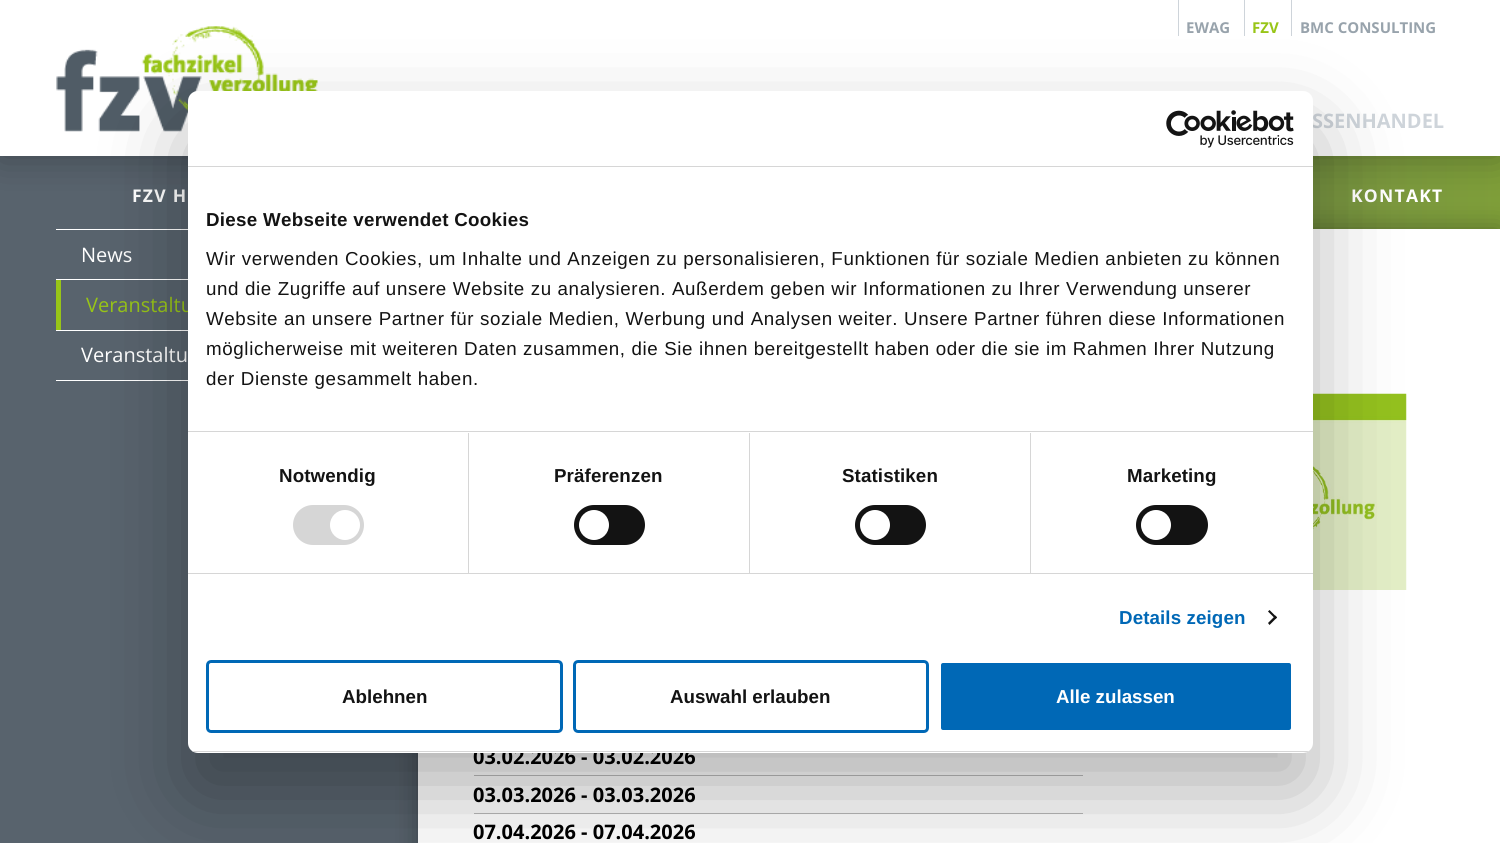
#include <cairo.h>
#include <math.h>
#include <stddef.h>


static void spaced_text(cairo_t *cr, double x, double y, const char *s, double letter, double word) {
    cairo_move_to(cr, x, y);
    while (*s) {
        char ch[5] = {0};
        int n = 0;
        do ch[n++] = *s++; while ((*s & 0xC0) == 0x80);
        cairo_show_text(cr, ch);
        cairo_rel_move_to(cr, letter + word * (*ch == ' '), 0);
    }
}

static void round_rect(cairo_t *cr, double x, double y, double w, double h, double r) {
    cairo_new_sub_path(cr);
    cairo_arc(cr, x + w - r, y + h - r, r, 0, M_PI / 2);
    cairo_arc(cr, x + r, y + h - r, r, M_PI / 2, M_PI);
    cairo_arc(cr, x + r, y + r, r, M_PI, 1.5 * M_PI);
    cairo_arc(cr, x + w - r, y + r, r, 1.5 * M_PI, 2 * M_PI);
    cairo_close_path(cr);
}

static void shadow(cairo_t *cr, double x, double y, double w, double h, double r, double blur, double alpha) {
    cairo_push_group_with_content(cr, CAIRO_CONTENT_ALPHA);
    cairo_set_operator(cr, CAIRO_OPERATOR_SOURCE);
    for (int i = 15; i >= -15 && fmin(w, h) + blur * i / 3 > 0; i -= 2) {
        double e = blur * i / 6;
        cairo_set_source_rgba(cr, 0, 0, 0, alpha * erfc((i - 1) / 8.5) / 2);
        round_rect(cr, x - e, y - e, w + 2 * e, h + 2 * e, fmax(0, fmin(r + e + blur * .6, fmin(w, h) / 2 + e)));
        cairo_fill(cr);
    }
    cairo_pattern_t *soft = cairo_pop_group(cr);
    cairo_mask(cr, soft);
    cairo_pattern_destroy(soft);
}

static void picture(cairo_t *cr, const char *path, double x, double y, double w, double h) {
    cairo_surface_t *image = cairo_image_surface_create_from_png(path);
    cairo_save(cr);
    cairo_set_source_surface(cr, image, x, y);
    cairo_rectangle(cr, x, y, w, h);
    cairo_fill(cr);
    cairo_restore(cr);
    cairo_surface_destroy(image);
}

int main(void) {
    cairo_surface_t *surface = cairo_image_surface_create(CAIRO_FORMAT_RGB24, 1500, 843);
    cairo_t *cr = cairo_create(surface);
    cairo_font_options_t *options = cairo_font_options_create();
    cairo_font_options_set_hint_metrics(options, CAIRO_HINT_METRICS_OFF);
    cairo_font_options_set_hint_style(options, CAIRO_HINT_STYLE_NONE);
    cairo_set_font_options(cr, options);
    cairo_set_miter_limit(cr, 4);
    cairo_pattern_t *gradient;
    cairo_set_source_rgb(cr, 0.345, 0.388, 0.427);
    cairo_paint(cr);
    gradient = cairo_pattern_create_linear(0, 193, 1500, 192);
    cairo_pattern_add_color_stop_rgba(gradient, 0.2, 0.345, 0.388, 0.427, 1);
    cairo_pattern_add_color_stop_rgba(gradient, 1, 0.494, 0.62, 0.224, 1);
    cairo_set_source(cr, gradient);
    cairo_pattern_destroy(gradient);
    cairo_rectangle(cr, 351, 156, 1149, 73);
    cairo_fill(cr);
    cairo_set_source_rgb(cr, 0, 0, 0);
    shadow(cr, 0, 0, 1500, 156, 0, 19, 0.3);
    cairo_set_source_rgb(cr, 1, 1, 1);
    cairo_rectangle(cr, 0, 0, 1500, 156);
    cairo_fill(cr);
    picture(cr, "img1.png", 56, 26, 262, 106);
    cairo_set_source_rgb(cr, 0.808, 0.831, 0.855);
    cairo_rectangle(cr, 1178, 0, 1, 36);
    cairo_fill(cr);
    cairo_select_font_face(cr, "Open Sans", CAIRO_FONT_SLANT_NORMAL, CAIRO_FONT_WEIGHT_BOLD);
    cairo_set_font_size(cr, 15);
    cairo_set_source_rgb(cr, 0.596, 0.639, 0.675);
    cairo_move_to(cr, 1186, 33);
    cairo_show_text(cr, "EWAG");
    cairo_set_source_rgb(cr, 0.808, 0.831, 0.855);
    cairo_rectangle(cr, 1244, 0, 1, 36);
    cairo_fill(cr);
    cairo_set_source_rgb(cr, 0.596, 0.773, 0.09);
    cairo_move_to(cr, 1252, 33);
    cairo_show_text(cr, "FZV");
    cairo_set_source_rgb(cr, 0.808, 0.831, 0.855);
    cairo_rectangle(cr, 1291, 0, 1, 36);
    cairo_fill(cr);
    cairo_set_source_rgb(cr, 0.596, 0.639, 0.675);
    cairo_move_to(cr, 1300, 33);
    cairo_show_text(cr, "BMC CONSULTING");
    cairo_set_font_size(cr, 20);
    cairo_set_source_rgb(cr, 0.808, 0.831, 0.855);
    cairo_move_to(cr, 1312, 128);
    cairo_show_text(cr, "SSENHANDEL");
    cairo_set_font_size(cr, 17.5);
    cairo_set_source_rgb(cr, 1, 1, 1);
    spaced_text(cr, 132, 202, "FZV H", 1.25, 0);
    spaced_text(cr, 1351, 202, "KONTAKT", 1.25, 0);
    cairo_rectangle(cr, 56, 229, 132, 1);
    cairo_fill(cr);
    cairo_rectangle(cr, 56, 279, 132, 1);
    cairo_fill(cr);
    cairo_select_font_face(cr, "Open Sans", CAIRO_FONT_SLANT_NORMAL, CAIRO_FONT_WEIGHT_NORMAL);
    cairo_set_font_size(cr, 20);
    cairo_move_to(cr, 81, 262);
    cairo_show_text(cr, "News");
    cairo_rectangle(cr, 56, 330, 132, 1);
    cairo_fill(cr);
    cairo_set_source_rgb(cr, 0.596, 0.773, 0.09);
    cairo_rectangle(cr, 56, 280, 5, 50);
    cairo_fill(cr);
    cairo_move_to(cr, 86, 312);
    cairo_show_text(cr, "Veranstaltu");
    cairo_set_source_rgb(cr, 1, 1, 1);
    cairo_rectangle(cr, 56, 380, 132, 1);
    cairo_fill(cr);
    cairo_move_to(cr, 81, 362);
    cairo_show_text(cr, "Veranstaltu");
    cairo_set_source_rgb(cr, 0, 0, 0);
    shadow(cr, 418, 229, 1082, 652, 0, 12.5, 0.3);
    cairo_set_source_rgb(cr, 1, 1, 1);
    cairo_rectangle(cr, 418, 229, 1082, 614);
    cairo_fill(cr);
    picture(cr, "img2.png", 1313, 393, 94, 197);
    cairo_set_source_rgb(cr, 0.737, 0.737, 0.737);
    cairo_rectangle(cr, 474, 775, 609, 1);
    cairo_fill(cr);
    cairo_select_font_face(cr, "Open Sans", CAIRO_FONT_SLANT_NORMAL, CAIRO_FONT_WEIGHT_BOLD);
    cairo_set_source_rgb(cr, 0, 0, 0);
    cairo_move_to(cr, 473, 764);
    cairo_show_text(cr, "03.02.2026 - 03.02.2026");
    cairo_set_source_rgb(cr, 0.737, 0.737, 0.737);
    cairo_rectangle(cr, 474, 813, 609, 1);
    cairo_fill(cr);
    cairo_set_source_rgb(cr, 0, 0, 0);
    cairo_move_to(cr, 473, 802);
    cairo_show_text(cr, "03.03.2026 - 03.03.2026");
    cairo_move_to(cr, 473, 839);
    cairo_show_text(cr, "07.04.2026 - 07.04.2026");
    cairo_set_source_rgb(cr, 0, 0, 0);
    shadow(cr, 188, 131, 1125, 662, 10, 42.5, 0.3);
    cairo_set_source_rgb(cr, 1, 1, 1);
    round_rect(cr, 188, 91, 1125, 662, 10);
    cairo_fill(cr);
    cairo_set_source_rgb(cr, 0.839, 0.839, 0.839);
    cairo_rectangle(cr, 188, 166, 1125, 1);
    cairo_fill(cr);
    picture(cr, "img3.png", 1166, 110, 128, 38);
    cairo_rectangle(cr, 188, 431, 1125, 1);
    cairo_fill(cr);
    cairo_select_font_face(cr, "Liberation Sans", CAIRO_FONT_SLANT_NORMAL, CAIRO_FONT_WEIGHT_BOLD);
    cairo_set_font_size(cr, 18.75);
    cairo_set_source_rgb(cr, 0.078, 0.078, 0.078);
    spaced_text(cr, 206, 226, "Diese Webseite verwendet Cookies", 0.3, 0);
    cairo_select_font_face(cr, "Liberation Sans", CAIRO_FONT_SLANT_NORMAL, CAIRO_FONT_WEIGHT_NORMAL);
    spaced_text(cr, 206, 265, "Wir verwenden Cookies, um Inhalte und Anzeigen zu personalisieren, Funktionen für soziale Medien anbieten zu können", 0.62, 0);
    spaced_text(cr, 206, 295, "und die Zugriffe auf unsere Website zu analysieren. Außerdem geben wir Informationen zu Ihrer Verwendung unserer", 0.62, 0);
    spaced_text(cr, 206, 325, "Website an unsere Partner für soziale Medien, Werbung und Analysen weiter. Unsere Partner führen diese Informationen", 0.62, 0);
    spaced_text(cr, 206, 355, "möglicherweise mit weiteren Daten zusammen, die Sie ihnen bereitgestellt haben oder die sie im Rahmen Ihrer Nutzung", 0.62, 0);
    spaced_text(cr, 206, 385, "der Dienste gesammelt haben.", 0.62, 0);
    cairo_set_source_rgb(cr, 0.839, 0.839, 0.839);
    cairo_rectangle(cr, 188, 573, 1125, 1);
    cairo_fill(cr);
    cairo_rectangle(cr, 468, 433, 1, 140);
    cairo_fill(cr);
    cairo_select_font_face(cr, "Liberation Sans", CAIRO_FONT_SLANT_NORMAL, CAIRO_FONT_WEIGHT_BOLD);
    cairo_set_source_rgb(cr, 0.078, 0.078, 0.078);
    spaced_text(cr, 279, 482, "Notwendig", 0.1, 0);
    cairo_set_source_rgb(cr, 0.839, 0.839, 0.839);
    round_rect(cr, 293, 505, 71, 40, 20);
    cairo_fill(cr);
    cairo_set_source_rgb(cr, 1, 1, 1);
    cairo_arc(cr, 345, 525, 15, 0, 2 * M_PI);
    cairo_fill(cr);
    cairo_set_source_rgb(cr, 0.839, 0.839, 0.839);
    cairo_rectangle(cr, 749, 433, 1, 140);
    cairo_fill(cr);
    cairo_set_source_rgb(cr, 0.078, 0.078, 0.078);
    spaced_text(cr, 554, 482, "Präferenzen", 0.1, 0);
    round_rect(cr, 574, 505, 71, 40, 20);
    cairo_fill(cr);
    cairo_set_source_rgb(cr, 1, 1, 1);
    cairo_arc(cr, 594, 525, 15, 0, 2 * M_PI);
    cairo_fill(cr);
    cairo_set_source_rgb(cr, 0.839, 0.839, 0.839);
    cairo_rectangle(cr, 1030, 433, 1, 140);
    cairo_fill(cr);
    cairo_set_source_rgb(cr, 0.078, 0.078, 0.078);
    spaced_text(cr, 842, 482, "Statistiken", 0.1, 0);
    round_rect(cr, 855, 505, 71, 40, 20);
    cairo_fill(cr);
    cairo_set_source_rgb(cr, 1, 1, 1);
    cairo_arc(cr, 875, 525, 15, 0, 2 * M_PI);
    cairo_fill(cr);
    cairo_set_source_rgb(cr, 0.078, 0.078, 0.078);
    spaced_text(cr, 1127, 482, "Marketing", 0.1, 0);
    round_rect(cr, 1136, 505, 72, 40, 20);
    cairo_fill(cr);
    cairo_set_source_rgb(cr, 1, 1, 1);
    cairo_arc(cr, 1156, 525, 15, 0, 2 * M_PI);
    cairo_fill(cr);
    cairo_set_source_rgb(cr, 0, 0.408, 0.714);
    spaced_text(cr, 1119, 624, "Details zeigen", 0.1, 0);
    cairo_set_source_rgb(cr, 0.078, 0.078, 0.078);
    cairo_new_path(cr);
    cairo_move_to(cr, 1269.5, 610);
    cairo_line_to(cr, 1277, 617.5);
    cairo_line_to(cr, 1275.5, 619);
    cairo_line_to(cr, 1268, 611.5);
    cairo_close_path(cr);
    cairo_fill(cr);
    cairo_new_path(cr);
    cairo_move_to(cr, 1275.5, 615.5);
    cairo_line_to(cr, 1277, 617.5);
    cairo_line_to(cr, 1269.5, 625);
    cairo_line_to(cr, 1268, 623);
    cairo_close_path(cr);
    cairo_fill(cr);
    cairo_save(cr);
    round_rect(cr, 188, 91, 1125, 662, 10);
    cairo_clip(cr);
    cairo_set_source_rgb(cr, 0.839, 0.839, 0.839);
    cairo_rectangle(cr, 188, 751, 1125, 1);
    cairo_fill(cr);
    cairo_restore(cr);
    round_rect(cr, 207.5, 661.5, 354, 70, 3.5);
    cairo_set_source_rgb(cr, 0, 0.408, 0.714);
    cairo_set_line_width(cr, 3);
    cairo_stroke(cr);
    cairo_set_source_rgb(cr, 0.078, 0.078, 0.078);
    cairo_move_to(cr, 342, 703);
    cairo_show_text(cr, "Ablehnen");
    round_rect(cr, 574.5, 661.5, 353, 70, 3.5);
    cairo_set_source_rgb(cr, 0, 0.408, 0.714);
    cairo_stroke(cr);
    cairo_set_source_rgb(cr, 0.078, 0.078, 0.078);
    cairo_move_to(cr, 670, 703);
    cairo_show_text(cr, "Auswahl erlauben");
    cairo_set_source_rgb(cr, 0, 0.408, 0.714);
    round_rect(cr, 939.5, 661.5, 353, 70, 3.5);
    cairo_fill_preserve(cr);
    cairo_set_source_rgb(cr, 1, 1, 1);
    cairo_stroke(cr);
    cairo_move_to(cr, 1056, 703);
    cairo_show_text(cr, "Alle zulassen");
    cairo_surface_write_to_png(surface, "page.png");
    cairo_font_options_destroy(options);
    cairo_destroy(cr);
    cairo_surface_destroy(surface);
    return 0;
}
